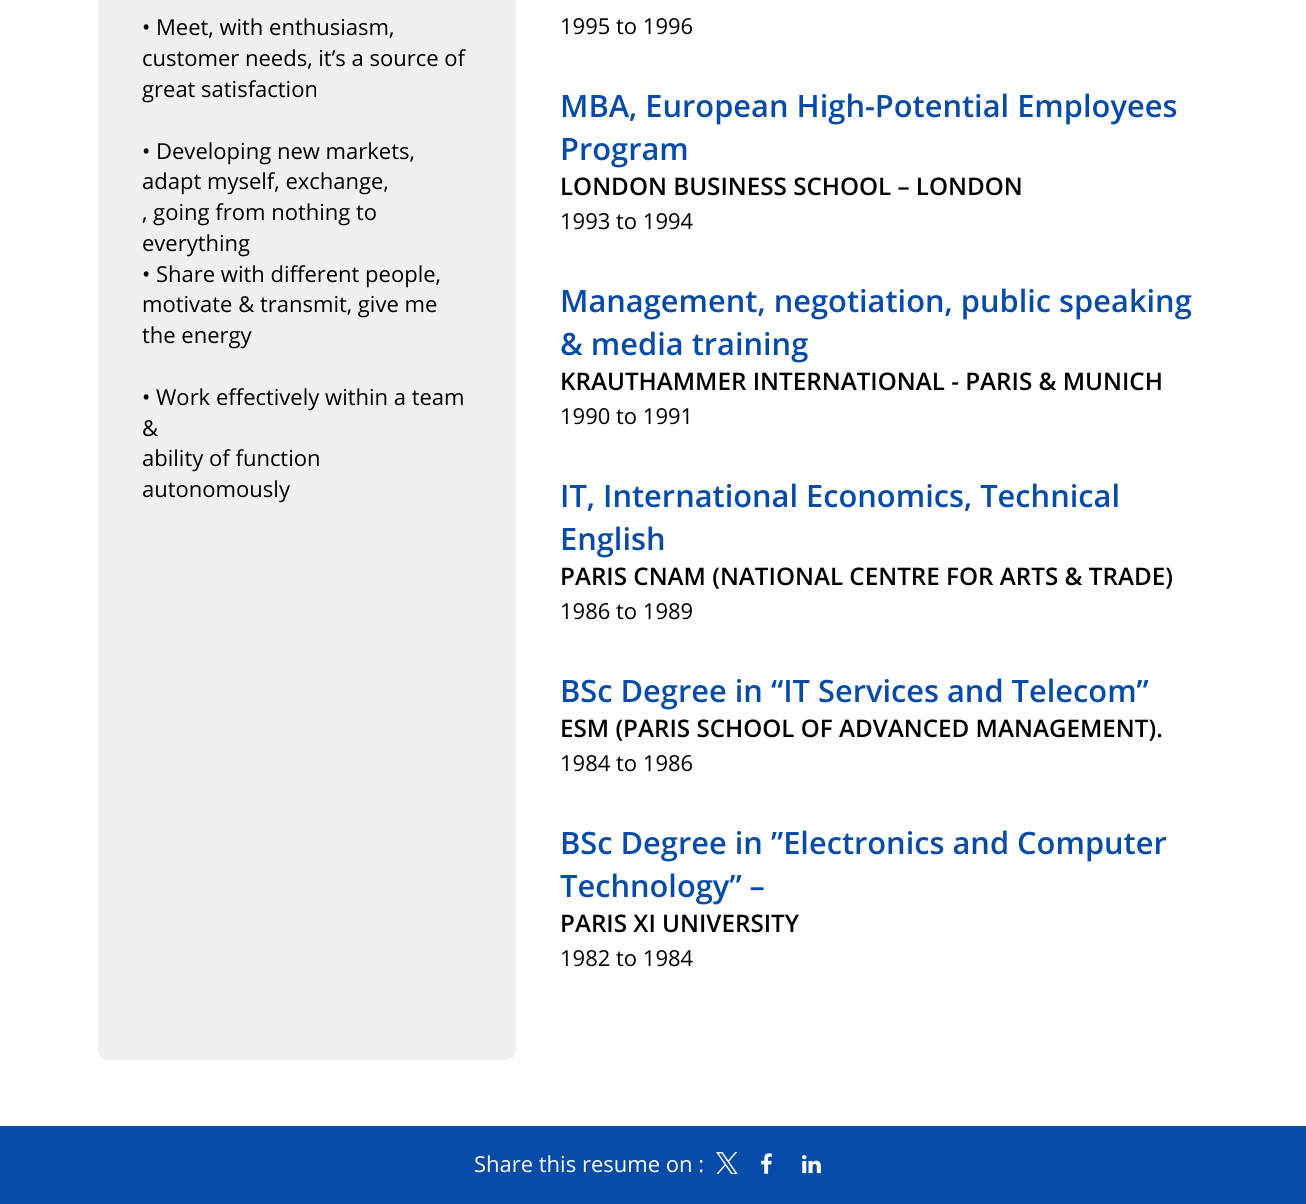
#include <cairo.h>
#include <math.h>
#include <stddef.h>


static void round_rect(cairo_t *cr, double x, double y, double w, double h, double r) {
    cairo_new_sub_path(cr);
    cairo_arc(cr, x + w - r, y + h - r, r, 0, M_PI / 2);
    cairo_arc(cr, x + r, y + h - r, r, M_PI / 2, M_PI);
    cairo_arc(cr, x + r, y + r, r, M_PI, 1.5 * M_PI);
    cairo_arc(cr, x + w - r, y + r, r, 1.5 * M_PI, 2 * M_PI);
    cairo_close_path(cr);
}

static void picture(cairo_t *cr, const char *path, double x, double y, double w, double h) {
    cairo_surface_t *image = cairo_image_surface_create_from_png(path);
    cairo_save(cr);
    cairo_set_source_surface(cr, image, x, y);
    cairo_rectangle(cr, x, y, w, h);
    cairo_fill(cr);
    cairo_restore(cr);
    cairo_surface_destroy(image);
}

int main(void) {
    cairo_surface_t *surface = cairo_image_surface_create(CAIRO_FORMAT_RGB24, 1306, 1204);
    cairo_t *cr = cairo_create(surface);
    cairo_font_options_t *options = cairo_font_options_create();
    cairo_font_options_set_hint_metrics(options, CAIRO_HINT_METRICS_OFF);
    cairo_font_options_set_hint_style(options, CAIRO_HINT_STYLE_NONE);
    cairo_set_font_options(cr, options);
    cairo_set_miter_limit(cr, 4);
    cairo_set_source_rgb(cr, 1, 1, 1);
    cairo_paint(cr);
    cairo_set_source_rgb(cr, 0.941, 0.941, 0.941);
    round_rect(cr, 98, -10, 418, 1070, 10);
    cairo_fill(cr);
    cairo_select_font_face(cr, "Open Sans", CAIRO_FONT_SLANT_NORMAL, CAIRO_FONT_WEIGHT_NORMAL);
    cairo_set_font_size(cr, 22);
    cairo_set_source_rgb(cr, 0, 0, 0);
    cairo_move_to(cr, 142, 35);
    cairo_show_text(cr, "• Meet, with enthusiasm,");
    cairo_move_to(cr, 142, 66);
    cairo_show_text(cr, "customer needs, it’s a source of");
    cairo_move_to(cr, 142, 97);
    cairo_show_text(cr, "great satisfaction");
    cairo_move_to(cr, 142, 159);
    cairo_show_text(cr, "• Developing new markets,");
    cairo_move_to(cr, 142, 189);
    cairo_show_text(cr, "adapt myself, exchange,");
    cairo_move_to(cr, 142, 220);
    cairo_show_text(cr, ", going from nothing to");
    cairo_move_to(cr, 142, 251);
    cairo_show_text(cr, "everything");
    cairo_move_to(cr, 142, 282);
    cairo_show_text(cr, "• Share with different people,");
    cairo_move_to(cr, 142, 312);
    cairo_show_text(cr, "motivate & transmit, give me");
    cairo_move_to(cr, 142, 343);
    cairo_show_text(cr, "the energy");
    cairo_move_to(cr, 142, 405);
    cairo_show_text(cr, "• Work effectively within a team");
    cairo_move_to(cr, 142, 436);
    cairo_show_text(cr, "&");
    cairo_move_to(cr, 142, 466);
    cairo_show_text(cr, "ability of function");
    cairo_move_to(cr, 142, 497);
    cairo_show_text(cr, "autonomously");
    cairo_move_to(cr, 560, 34);
    cairo_show_text(cr, "1995 to 1996");
    cairo_select_font_face(cr, "Open Sans SemiBold", CAIRO_FONT_SLANT_NORMAL, CAIRO_FONT_WEIGHT_NORMAL);
    cairo_set_font_size(cr, 30.8);
    cairo_set_source_rgb(cr, 0.031, 0.294, 0.663);
    cairo_move_to(cr, 560, 117);
    cairo_show_text(cr, "MBA, European High-Potential Employees");
    cairo_move_to(cr, 560, 160);
    cairo_show_text(cr, "Program");
    cairo_set_font_size(cr, 24.2);
    cairo_set_source_rgb(cr, 0, 0, 0);
    cairo_move_to(cr, 560, 195);
    cairo_show_text(cr, "LONDON BUSINESS SCHOOL – LONDON");
    cairo_select_font_face(cr, "Open Sans", CAIRO_FONT_SLANT_NORMAL, CAIRO_FONT_WEIGHT_NORMAL);
    cairo_set_font_size(cr, 22);
    cairo_move_to(cr, 560, 229);
    cairo_show_text(cr, "1993 to 1994");
    cairo_select_font_face(cr, "Open Sans SemiBold", CAIRO_FONT_SLANT_NORMAL, CAIRO_FONT_WEIGHT_NORMAL);
    cairo_set_font_size(cr, 30.8);
    cairo_set_source_rgb(cr, 0.031, 0.294, 0.663);
    cairo_move_to(cr, 560, 312);
    cairo_show_text(cr, "Management, negotiation, public speaking");
    cairo_move_to(cr, 560, 355);
    cairo_show_text(cr, "& media training");
    cairo_set_font_size(cr, 24.2);
    cairo_set_source_rgb(cr, 0, 0, 0);
    cairo_move_to(cr, 560, 390);
    cairo_show_text(cr, "KRAUTHAMMER INTERNATIONAL - PARIS & MUNICH");
    cairo_select_font_face(cr, "Open Sans", CAIRO_FONT_SLANT_NORMAL, CAIRO_FONT_WEIGHT_NORMAL);
    cairo_set_font_size(cr, 22);
    cairo_move_to(cr, 560, 424);
    cairo_show_text(cr, "1990 to 1991");
    cairo_select_font_face(cr, "Open Sans SemiBold", CAIRO_FONT_SLANT_NORMAL, CAIRO_FONT_WEIGHT_NORMAL);
    cairo_set_font_size(cr, 30.8);
    cairo_set_source_rgb(cr, 0.031, 0.294, 0.663);
    cairo_move_to(cr, 560, 507);
    cairo_show_text(cr, "IT, International Economics, Technical");
    cairo_move_to(cr, 560, 550);
    cairo_show_text(cr, "English");
    cairo_set_font_size(cr, 24.2);
    cairo_set_source_rgb(cr, 0, 0, 0);
    cairo_move_to(cr, 560, 585);
    cairo_show_text(cr, "PARIS CNAM (NATIONAL CENTRE FOR ARTS & TRADE)");
    cairo_select_font_face(cr, "Open Sans", CAIRO_FONT_SLANT_NORMAL, CAIRO_FONT_WEIGHT_NORMAL);
    cairo_set_font_size(cr, 22);
    cairo_move_to(cr, 560, 619);
    cairo_show_text(cr, "1986 to 1989");
    cairo_select_font_face(cr, "Open Sans SemiBold", CAIRO_FONT_SLANT_NORMAL, CAIRO_FONT_WEIGHT_NORMAL);
    cairo_set_font_size(cr, 30.8);
    cairo_set_source_rgb(cr, 0.031, 0.294, 0.663);
    cairo_move_to(cr, 560, 702);
    cairo_show_text(cr, "BSc Degree in “IT Services and Telecom”");
    cairo_set_font_size(cr, 24.2);
    cairo_set_source_rgb(cr, 0, 0, 0);
    cairo_move_to(cr, 560, 737);
    cairo_show_text(cr, "ESM (PARIS SCHOOL OF ADVANCED MANAGEMENT).");
    cairo_select_font_face(cr, "Open Sans", CAIRO_FONT_SLANT_NORMAL, CAIRO_FONT_WEIGHT_NORMAL);
    cairo_set_font_size(cr, 22);
    cairo_move_to(cr, 560, 771);
    cairo_show_text(cr, "1984 to 1986");
    cairo_select_font_face(cr, "Open Sans SemiBold", CAIRO_FONT_SLANT_NORMAL, CAIRO_FONT_WEIGHT_NORMAL);
    cairo_set_font_size(cr, 30.8);
    cairo_set_source_rgb(cr, 0.031, 0.294, 0.663);
    cairo_move_to(cr, 560, 854);
    cairo_show_text(cr, "BSc Degree in ”Electronics and Computer");
    cairo_move_to(cr, 560, 897);
    cairo_show_text(cr, "Technology” –");
    cairo_set_font_size(cr, 24.2);
    cairo_set_source_rgb(cr, 0, 0, 0);
    cairo_move_to(cr, 560, 932);
    cairo_show_text(cr, "PARIS XI UNIVERSITY");
    cairo_select_font_face(cr, "Open Sans", CAIRO_FONT_SLANT_NORMAL, CAIRO_FONT_WEIGHT_NORMAL);
    cairo_set_font_size(cr, 22);
    cairo_move_to(cr, 560, 966);
    cairo_show_text(cr, "1982 to 1984");
    cairo_set_source_rgb(cr, 0.031, 0.294, 0.663);
    cairo_rectangle(cr, 0, 1126, 1306, 78);
    cairo_fill(cr);
    cairo_set_source_rgb(cr, 1, 1, 1);
    cairo_move_to(cr, 474, 1172);
    cairo_show_text(cr, "Share this resume on :");
    picture(cr, "img1.png", 716, 1152, 22, 22);
    picture(cr, "img2.png", 761, 1153, 11, 21);
    picture(cr, "img3.png", 802, 1155, 19, 19);
    cairo_surface_write_to_png(surface, "page.png");
    cairo_font_options_destroy(options);
    cairo_destroy(cr);
    cairo_surface_destroy(surface);
    return 0;
}
